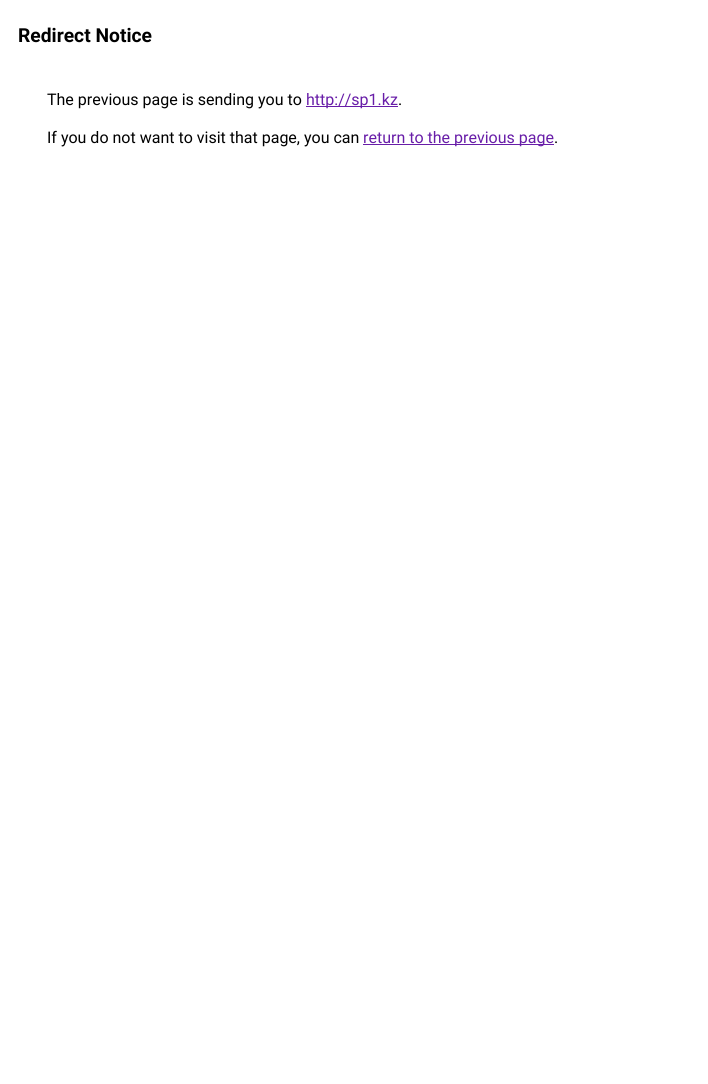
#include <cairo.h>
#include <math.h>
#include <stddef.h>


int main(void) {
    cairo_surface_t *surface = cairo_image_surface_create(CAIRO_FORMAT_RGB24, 708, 1084);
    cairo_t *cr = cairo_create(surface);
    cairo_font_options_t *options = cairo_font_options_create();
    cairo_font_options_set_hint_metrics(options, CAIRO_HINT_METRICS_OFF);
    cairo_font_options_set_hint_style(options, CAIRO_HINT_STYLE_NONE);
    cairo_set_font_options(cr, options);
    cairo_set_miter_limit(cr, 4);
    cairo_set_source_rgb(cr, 1, 1, 1);
    cairo_paint(cr);
    cairo_select_font_face(cr, "Roboto", CAIRO_FONT_SLANT_NORMAL, CAIRO_FONT_WEIGHT_BOLD);
    cairo_set_font_size(cr, 19.25);
    cairo_set_source_rgb(cr, 0, 0, 0);
    cairo_move_to(cr, 18, 42);
    cairo_show_text(cr, "Redirect Notice");
    cairo_select_font_face(cr, "Roboto", CAIRO_FONT_SLANT_NORMAL, CAIRO_FONT_WEIGHT_NORMAL);
    cairo_set_font_size(cr, 16);
    cairo_move_to(cr, 47, 105);
    cairo_show_text(cr, "The previous page is sending you to");
    cairo_set_source_rgb(cr, 0.408, 0.114, 0.659);
    cairo_rectangle(cr, 306, 106, 92, 1);
    cairo_fill(cr);
    cairo_move_to(cr, 306, 105);
    cairo_show_text(cr, "http://sp1.kz");
    cairo_set_source_rgb(cr, 0, 0, 0);
    cairo_move_to(cr, 398, 105);
    cairo_show_text(cr, ".");
    cairo_move_to(cr, 47, 143);
    cairo_show_text(cr, "If you do not want to visit that page, you can");
    cairo_set_source_rgb(cr, 0.408, 0.114, 0.659);
    cairo_rectangle(cr, 363, 144, 191, 1);
    cairo_fill(cr);
    cairo_move_to(cr, 363, 143);
    cairo_show_text(cr, "return to the previous page");
    cairo_set_source_rgb(cr, 0, 0, 0);
    cairo_move_to(cr, 554, 143);
    cairo_show_text(cr, ".");
    cairo_surface_write_to_png(surface, "page.png");
    cairo_font_options_destroy(options);
    cairo_destroy(cr);
    cairo_surface_destroy(surface);
    return 0;
}
